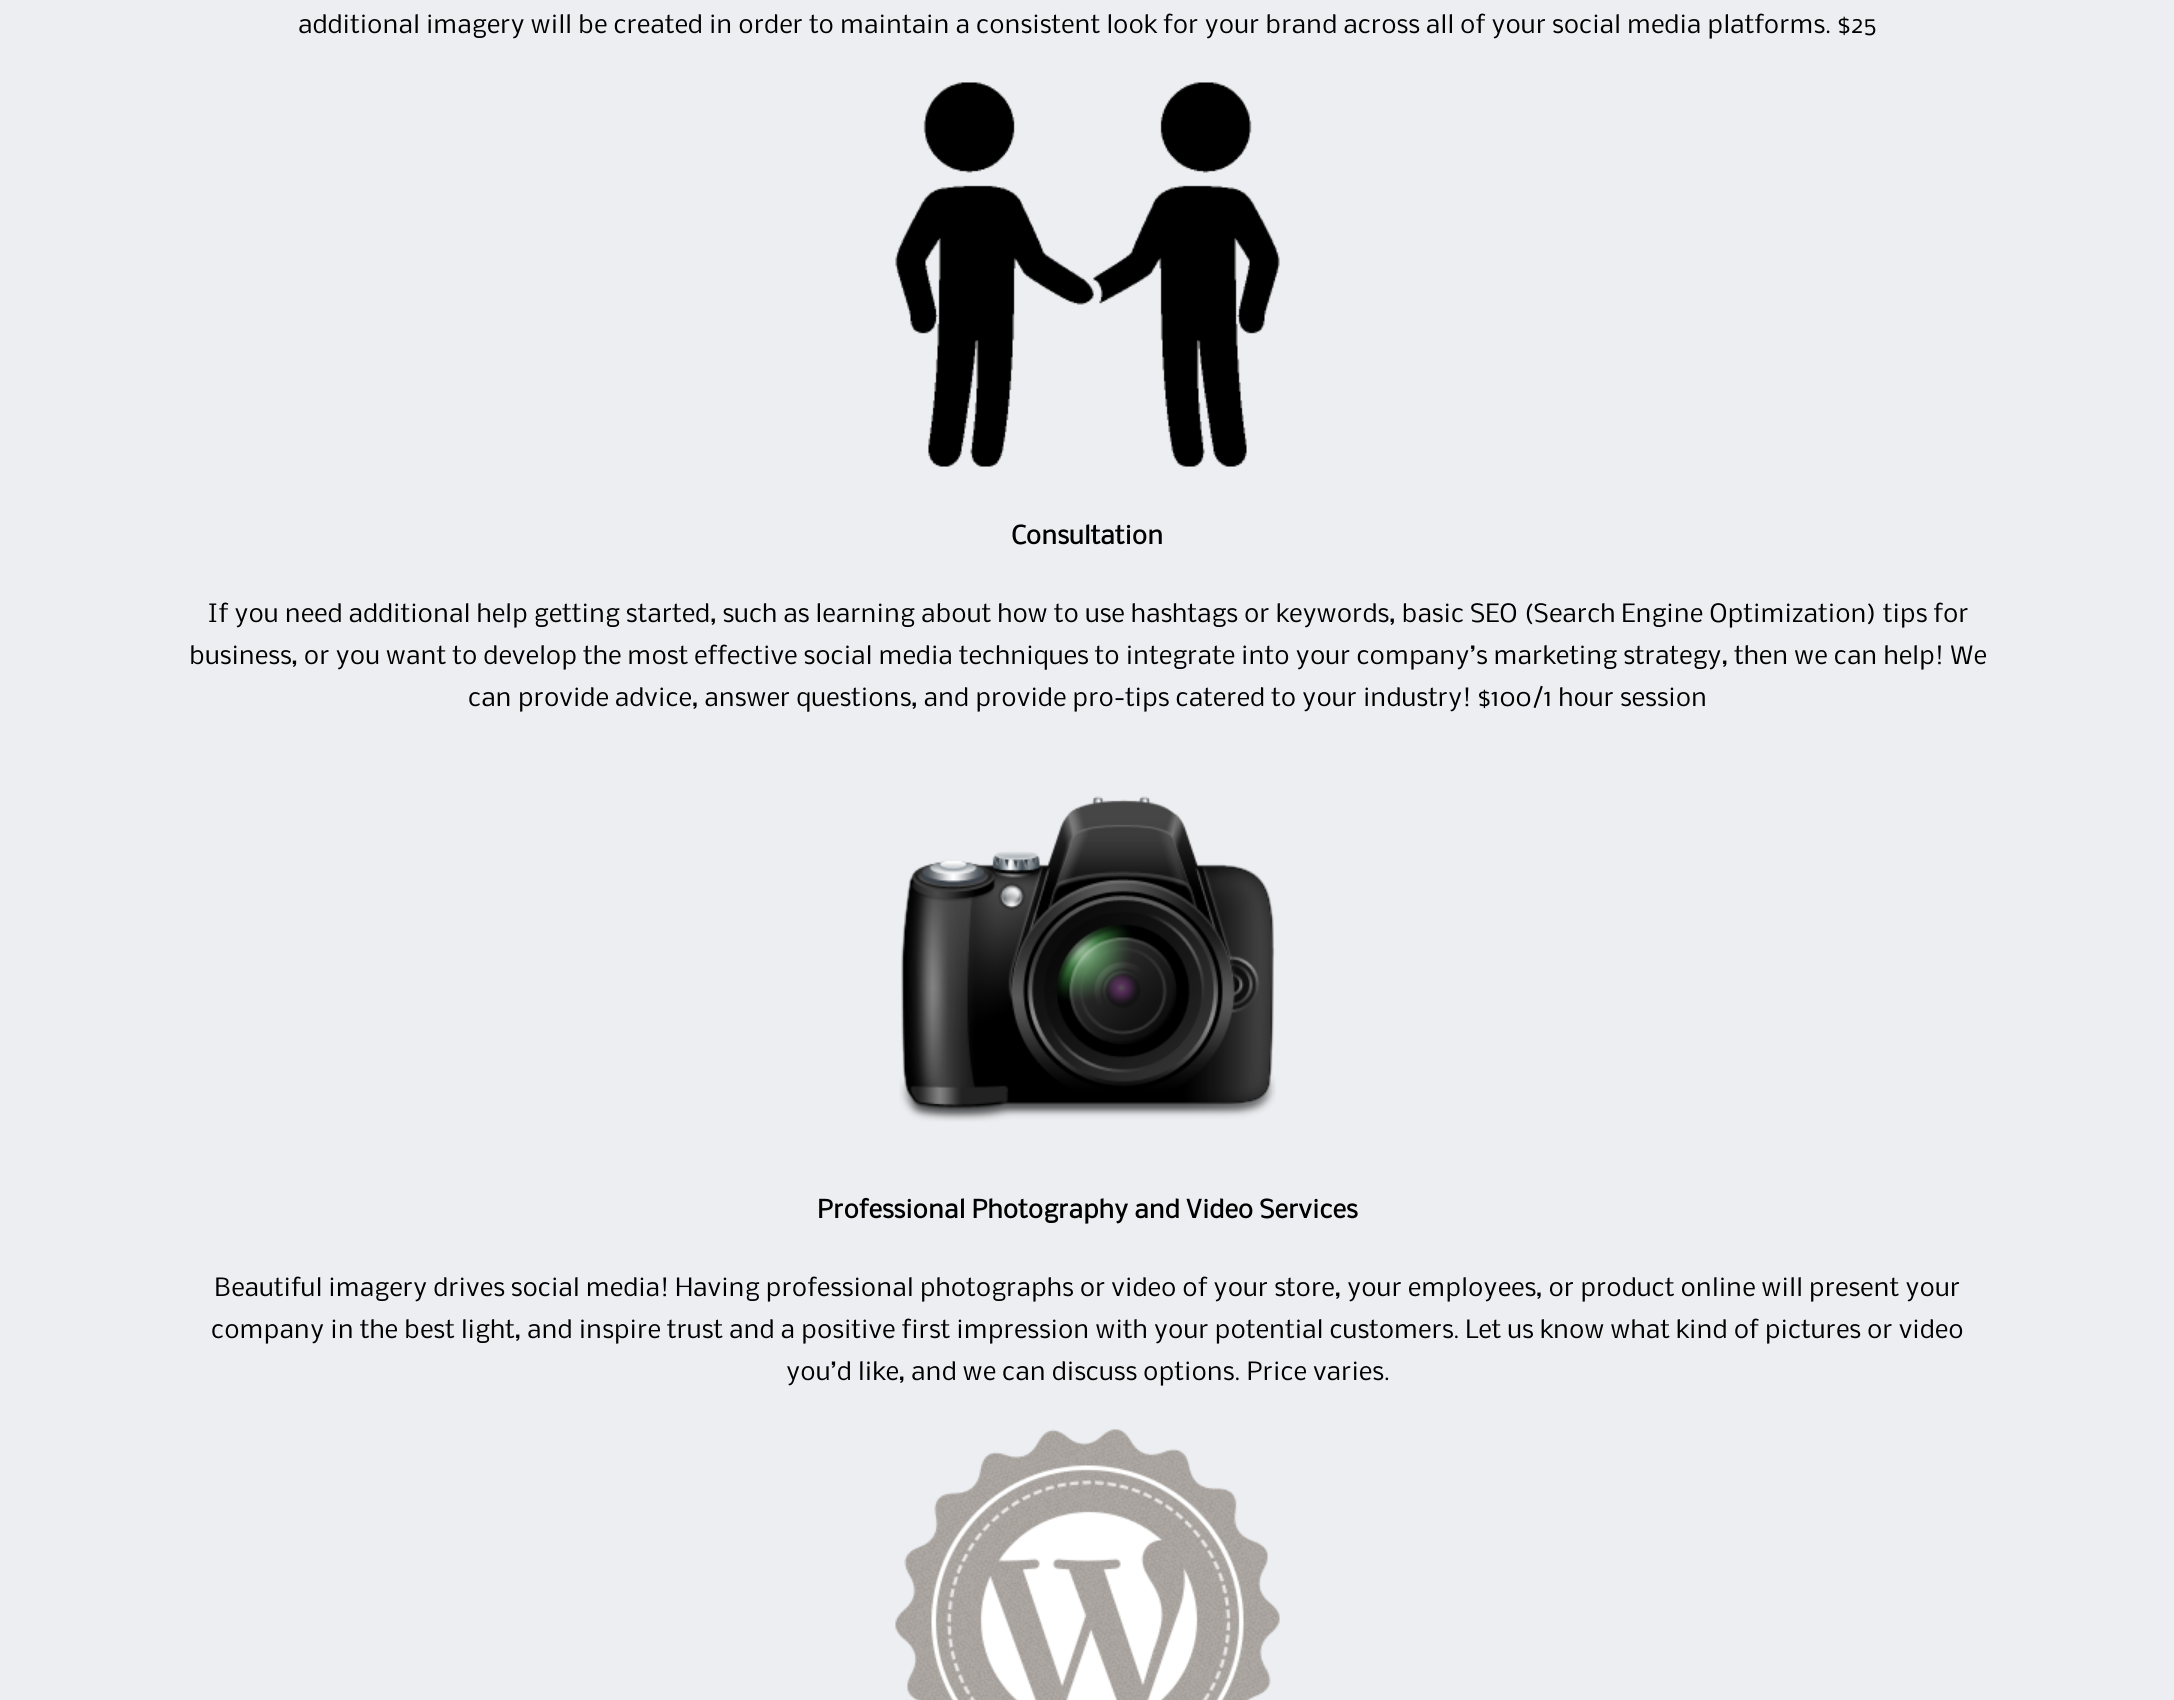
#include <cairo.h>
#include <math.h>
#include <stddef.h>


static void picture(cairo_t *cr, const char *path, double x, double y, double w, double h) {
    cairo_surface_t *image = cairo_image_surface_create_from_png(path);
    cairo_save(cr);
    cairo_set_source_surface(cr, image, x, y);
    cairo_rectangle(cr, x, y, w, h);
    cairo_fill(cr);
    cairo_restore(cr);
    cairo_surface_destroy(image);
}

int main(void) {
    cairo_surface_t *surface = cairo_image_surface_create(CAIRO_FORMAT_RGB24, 2174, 1700);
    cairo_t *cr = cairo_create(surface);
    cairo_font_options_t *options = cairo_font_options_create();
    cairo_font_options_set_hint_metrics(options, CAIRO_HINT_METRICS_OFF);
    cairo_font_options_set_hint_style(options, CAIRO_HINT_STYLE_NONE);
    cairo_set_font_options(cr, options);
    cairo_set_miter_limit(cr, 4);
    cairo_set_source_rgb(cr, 0.922, 0.933, 0.945);
    cairo_paint(cr);
    cairo_select_font_face(cr, "Nobile", CAIRO_FONT_SLANT_NORMAL, CAIRO_FONT_WEIGHT_NORMAL);
    cairo_set_font_size(cr, 24);
    cairo_set_source_rgb(cr, 0, 0, 0);
    cairo_move_to(cr, 298, 33);
    cairo_show_text(cr, "additional imagery will be created in order to maintain a consistent look for your brand across all of your social media platforms. $25");
    picture(cr, "img1.png", 895, 82, 385, 385);
    cairo_select_font_face(cr, "Nobile", CAIRO_FONT_SLANT_NORMAL, CAIRO_FONT_WEIGHT_BOLD);
    cairo_move_to(cr, 1011, 544);
    cairo_show_text(cr, "Consultation");
    cairo_select_font_face(cr, "Nobile", CAIRO_FONT_SLANT_NORMAL, CAIRO_FONT_WEIGHT_NORMAL);
    cairo_move_to(cr, 207, 622);
    cairo_show_text(cr, "If you need additional help getting started, such as learning about how to use hashtags or keywords, basic SEO (Search Engine Optimization) tips for");
    cairo_move_to(cr, 189, 664);
    cairo_show_text(cr, "business, or you want to develop the most effective social media techniques to integrate into your company’s marketing strategy, then we can help! We");
    cairo_move_to(cr, 468, 706);
    cairo_show_text(cr, "can provide advice, answer questions, and provide pro-tips catered to your industry! $100/1 hour session");
    picture(cr, "img2.png", 899, 796, 377, 326);
    cairo_select_font_face(cr, "Nobile", CAIRO_FONT_SLANT_NORMAL, CAIRO_FONT_WEIGHT_BOLD);
    cairo_move_to(cr, 817, 1218);
    cairo_show_text(cr, "Professional Photography and Video Services");
    cairo_select_font_face(cr, "Nobile", CAIRO_FONT_SLANT_NORMAL, CAIRO_FONT_WEIGHT_NORMAL);
    cairo_move_to(cr, 214, 1296);
    cairo_show_text(cr, "Beautiful imagery drives social media! Having professional photographs or video of your store, your employees, or product online will present your");
    cairo_move_to(cr, 211, 1338);
    cairo_show_text(cr, "company in the best light, and inspire trust and a positive first impression with your potential customers. Let us know what kind of pictures or video");
    cairo_move_to(cr, 786, 1380);
    cairo_show_text(cr, "you’d like, and we can discuss options. Price varies.");
    picture(cr, "img3.png", 895, 1429, 385, 271);
    cairo_surface_write_to_png(surface, "page.png");
    cairo_font_options_destroy(options);
    cairo_destroy(cr);
    cairo_surface_destroy(surface);
    return 0;
}
